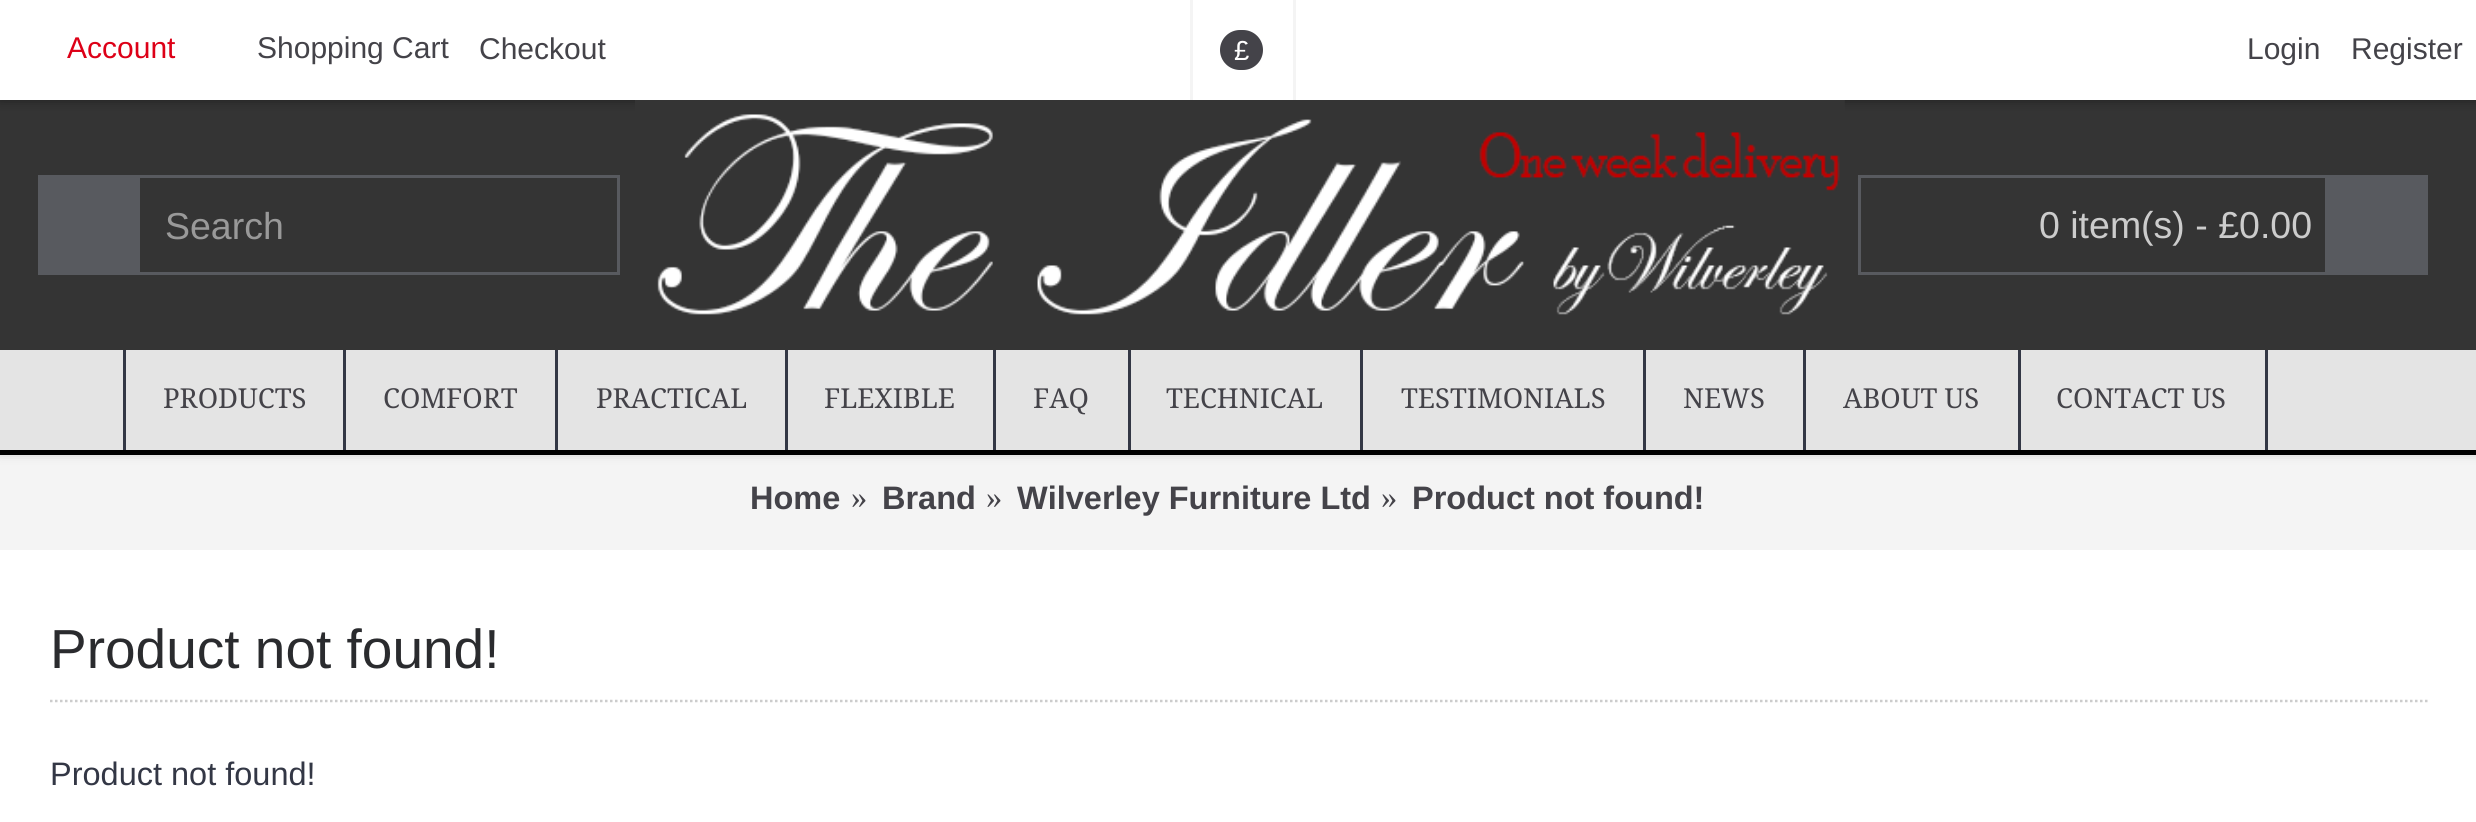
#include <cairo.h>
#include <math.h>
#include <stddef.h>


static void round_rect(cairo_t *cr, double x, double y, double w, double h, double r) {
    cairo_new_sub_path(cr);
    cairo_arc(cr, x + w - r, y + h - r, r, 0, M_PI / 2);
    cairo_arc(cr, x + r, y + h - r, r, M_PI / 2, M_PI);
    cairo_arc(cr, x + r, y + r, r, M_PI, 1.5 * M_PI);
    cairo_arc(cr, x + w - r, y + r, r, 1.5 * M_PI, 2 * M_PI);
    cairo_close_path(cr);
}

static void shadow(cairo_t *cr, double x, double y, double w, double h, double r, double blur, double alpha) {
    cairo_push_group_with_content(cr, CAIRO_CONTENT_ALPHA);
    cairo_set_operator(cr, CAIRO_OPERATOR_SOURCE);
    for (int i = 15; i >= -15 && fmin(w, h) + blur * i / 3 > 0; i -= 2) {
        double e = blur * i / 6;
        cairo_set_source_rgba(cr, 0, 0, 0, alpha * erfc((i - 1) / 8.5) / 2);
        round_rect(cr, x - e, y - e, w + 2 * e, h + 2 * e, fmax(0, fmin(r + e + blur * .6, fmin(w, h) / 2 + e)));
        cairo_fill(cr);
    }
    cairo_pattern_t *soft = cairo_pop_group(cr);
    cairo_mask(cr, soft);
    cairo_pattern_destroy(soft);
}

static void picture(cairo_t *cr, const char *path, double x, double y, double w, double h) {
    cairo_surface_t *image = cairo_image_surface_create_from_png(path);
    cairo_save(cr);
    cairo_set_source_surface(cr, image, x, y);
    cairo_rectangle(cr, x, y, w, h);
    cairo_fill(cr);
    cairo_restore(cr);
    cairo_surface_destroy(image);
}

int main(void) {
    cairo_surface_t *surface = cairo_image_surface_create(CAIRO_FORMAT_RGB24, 2476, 822);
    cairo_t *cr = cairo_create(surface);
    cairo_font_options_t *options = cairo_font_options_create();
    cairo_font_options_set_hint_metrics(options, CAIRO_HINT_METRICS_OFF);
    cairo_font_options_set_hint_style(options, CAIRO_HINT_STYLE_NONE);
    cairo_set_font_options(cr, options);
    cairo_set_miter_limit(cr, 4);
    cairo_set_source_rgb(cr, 1, 1, 1);
    cairo_paint(cr);
    cairo_set_source_rgb(cr, 0.957, 0.957, 0.957);
    cairo_rectangle(cr, 0, 455, 2476, 95);
    cairo_fill(cr);
    cairo_set_source_rgb(cr, 0, 0, 0);
    shadow(cr, 0, 0, 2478, 450, 0, 6, 0.4);
    cairo_set_source_rgb(cr, 0.204, 0.204, 0.204);
    cairo_rectangle(cr, 0, 100, 2476, 250);
    cairo_fill(cr);
    cairo_set_source_rgb(cr, 0, 0, 0);
    shadow(cr, 0, 0, 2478, 100, 0, 6, 0.4);
    cairo_set_source_rgb(cr, 1, 1, 1);
    cairo_rectangle(cr, 0, 0, 2476, 100);
    cairo_fill(cr);
    cairo_select_font_face(cr, "Liberation Sans", CAIRO_FONT_SLANT_NORMAL, CAIRO_FONT_WEIGHT_NORMAL);
    cairo_set_font_size(cr, 30);
    cairo_set_source_rgb(cr, 0.867, 0, 0.09);
    cairo_move_to(cr, 67, 58);
    cairo_show_text(cr, "Account");
    cairo_set_source_rgb(cr, 0.267, 0.263, 0.286);
    cairo_move_to(cr, 257, 58);
    cairo_show_text(cr, "Shopping Cart");
    cairo_move_to(cr, 479, 59);
    cairo_show_text(cr, "Checkout");
    cairo_set_source_rgb(cr, 0.957, 0.957, 0.957);
    cairo_rectangle(cr, 1293, 0, 3, 100);
    cairo_fill(cr);
    cairo_rectangle(cr, 1190, 0, 3, 100);
    cairo_fill(cr);
    cairo_set_source_rgb(cr, 0.267, 0.263, 0.286);
    round_rect(cr, 1220, 30, 43, 40, 20);
    cairo_fill(cr);
    cairo_set_font_size(cr, 27.5);
    cairo_set_source_rgb(cr, 1, 1, 1);
    cairo_move_to(cr, 1234, 60);
    cairo_show_text(cr, "£");
    cairo_set_font_size(cr, 30);
    cairo_set_source_rgb(cr, 0.267, 0.263, 0.286);
    cairo_move_to(cr, 2247, 59);
    cairo_show_text(cr, "Login");
    cairo_move_to(cr, 2351, 59);
    cairo_show_text(cr, "Register");
    cairo_rectangle(cr, 39.5, 176.5, 579, 97);
    cairo_set_source_rgb(cr, 0.345, 0.353, 0.373);
    cairo_set_line_width(cr, 3);
    cairo_stroke(cr);
    cairo_rectangle(cr, 41, 178, 99, 94);
    cairo_fill(cr);
    cairo_set_font_size(cr, 37.5);
    cairo_set_source_rgb(cr, 0.6, 0.6, 0.6);
    cairo_move_to(cr, 165, 239);
    cairo_show_text(cr, "Search");
    picture(cr, "img1.png", 635, 100, 1210, 215);
    cairo_rectangle(cr, 1859.5, 176.5, 567, 97);
    cairo_set_source_rgb(cr, 0.345, 0.353, 0.373);
    cairo_stroke(cr);
    cairo_set_source_rgb(cr, 0.8, 0.8, 0.8);
    cairo_move_to(cr, 2039, 238);
    cairo_show_text(cr, "0 item(s) - £0.00");
    cairo_set_source_rgb(cr, 0.345, 0.353, 0.373);
    cairo_rectangle(cr, 2325, 178, 100, 94);
    cairo_fill(cr);
    cairo_set_source_rgb(cr, 0, 0, 0);
    cairo_rectangle(cr, 0, 450, 2476, 5);
    cairo_fill(cr);
    cairo_set_source_rgb(cr, 0.894, 0.894, 0.894);
    cairo_rectangle(cr, 0, 350, 2476, 100);
    cairo_fill(cr);
    cairo_set_source_rgb(cr, 0.2, 0.216, 0.271);
    cairo_rectangle(cr, 123, 350, 3, 100);
    cairo_fill(cr);
    cairo_rectangle(cr, 343, 350, 3, 100);
    cairo_fill(cr);
    cairo_select_font_face(cr, "Droid Serif", CAIRO_FONT_SLANT_NORMAL, CAIRO_FONT_WEIGHT_NORMAL);
    cairo_set_font_size(cr, 27.5);
    cairo_set_source_rgb(cr, 0.267, 0.263, 0.286);
    cairo_move_to(cr, 163, 408);
    cairo_show_text(cr, "PRODUCTS");
    cairo_set_source_rgb(cr, 0.2, 0.216, 0.271);
    cairo_rectangle(cr, 555, 350, 3, 100);
    cairo_fill(cr);
    cairo_set_source_rgb(cr, 0.267, 0.263, 0.286);
    cairo_move_to(cr, 383, 408);
    cairo_show_text(cr, "COMFORT");
    cairo_set_source_rgb(cr, 0.2, 0.216, 0.271);
    cairo_rectangle(cr, 785, 350, 3, 100);
    cairo_fill(cr);
    cairo_set_source_rgb(cr, 0.267, 0.263, 0.286);
    cairo_move_to(cr, 596, 408);
    cairo_show_text(cr, "PRACTICAL");
    cairo_set_source_rgb(cr, 0.2, 0.216, 0.271);
    cairo_rectangle(cr, 993, 350, 3, 100);
    cairo_fill(cr);
    cairo_set_source_rgb(cr, 0.267, 0.263, 0.286);
    cairo_move_to(cr, 824, 408);
    cairo_show_text(cr, "FLEXIBLE");
    cairo_set_source_rgb(cr, 0.2, 0.216, 0.271);
    cairo_rectangle(cr, 1128, 350, 3, 100);
    cairo_fill(cr);
    cairo_set_source_rgb(cr, 0.267, 0.263, 0.286);
    cairo_move_to(cr, 1033, 408);
    cairo_show_text(cr, "FAQ");
    cairo_set_source_rgb(cr, 0.2, 0.216, 0.271);
    cairo_rectangle(cr, 1360, 350, 3, 100);
    cairo_fill(cr);
    cairo_set_source_rgb(cr, 0.267, 0.263, 0.286);
    cairo_move_to(cr, 1166, 408);
    cairo_show_text(cr, "TECHNICAL");
    cairo_set_source_rgb(cr, 0.2, 0.216, 0.271);
    cairo_rectangle(cr, 1643, 350, 3, 100);
    cairo_fill(cr);
    cairo_set_source_rgb(cr, 0.267, 0.263, 0.286);
    cairo_move_to(cr, 1401, 408);
    cairo_show_text(cr, "TESTIMONIALS");
    cairo_set_source_rgb(cr, 0.2, 0.216, 0.271);
    cairo_rectangle(cr, 1803, 350, 3, 100);
    cairo_fill(cr);
    cairo_set_source_rgb(cr, 0.267, 0.263, 0.286);
    cairo_move_to(cr, 1683, 408);
    cairo_show_text(cr, "NEWS");
    cairo_set_source_rgb(cr, 0.2, 0.216, 0.271);
    cairo_rectangle(cr, 2018, 350, 3, 100);
    cairo_fill(cr);
    cairo_set_source_rgb(cr, 0.267, 0.263, 0.286);
    cairo_move_to(cr, 1843, 408);
    cairo_show_text(cr, "ABOUT US");
    cairo_set_source_rgb(cr, 0.2, 0.216, 0.271);
    cairo_rectangle(cr, 2265, 350, 3, 100);
    cairo_fill(cr);
    cairo_set_source_rgb(cr, 0.267, 0.263, 0.286);
    cairo_move_to(cr, 2056, 408);
    cairo_show_text(cr, "CONTACT US");
    cairo_select_font_face(cr, "Liberation Sans", CAIRO_FONT_SLANT_NORMAL, CAIRO_FONT_WEIGHT_BOLD);
    cairo_set_font_size(cr, 32.5);
    cairo_move_to(cr, 750, 509);
    cairo_show_text(cr, "Home");
    cairo_select_font_face(cr, "Liberation Serif", CAIRO_FONT_SLANT_NORMAL, CAIRO_FONT_WEIGHT_NORMAL);
    cairo_move_to(cr, 851, 508);
    cairo_show_text(cr, "»");
    cairo_select_font_face(cr, "Liberation Sans", CAIRO_FONT_SLANT_NORMAL, CAIRO_FONT_WEIGHT_BOLD);
    cairo_move_to(cr, 882, 509);
    cairo_show_text(cr, "Brand");
    cairo_select_font_face(cr, "Liberation Serif", CAIRO_FONT_SLANT_NORMAL, CAIRO_FONT_WEIGHT_NORMAL);
    cairo_move_to(cr, 986, 508);
    cairo_show_text(cr, "»");
    cairo_select_font_face(cr, "Liberation Sans", CAIRO_FONT_SLANT_NORMAL, CAIRO_FONT_WEIGHT_BOLD);
    cairo_move_to(cr, 1017, 509);
    cairo_show_text(cr, "Wilverley Furniture Ltd");
    cairo_select_font_face(cr, "Liberation Serif", CAIRO_FONT_SLANT_NORMAL, CAIRO_FONT_WEIGHT_NORMAL);
    cairo_move_to(cr, 1381, 508);
    cairo_show_text(cr, "»");
    cairo_select_font_face(cr, "Liberation Sans", CAIRO_FONT_SLANT_NORMAL, CAIRO_FONT_WEIGHT_BOLD);
    cairo_move_to(cr, 1412, 509);
    cairo_show_text(cr, "Product not found!");
    cairo_new_path(cr);
    cairo_move_to(cr, 50, 701);
    cairo_line_to(cr, 2427.5, 701);
    cairo_set_source_rgb(cr, 0.8, 0.8, 0.8);
    cairo_set_line_width(cr, 2.5);
    cairo_set_dash(cr, (double[]){2.5, 2.5}, 2, 0);
    cairo_stroke(cr);
    cairo_select_font_face(cr, "Liberation Sans", CAIRO_FONT_SLANT_NORMAL, CAIRO_FONT_WEIGHT_NORMAL);
    cairo_set_font_size(cr, 55);
    cairo_set_source_rgb(cr, 0.165, 0.169, 0.18);
    cairo_move_to(cr, 50, 668);
    cairo_show_text(cr, "Product not found!");
    cairo_set_font_size(cr, 32.5);
    cairo_set_source_rgb(cr, 0.2, 0.216, 0.271);
    cairo_move_to(cr, 50, 785);
    cairo_show_text(cr, "Product not found!");
    cairo_surface_write_to_png(surface, "page.png");
    cairo_font_options_destroy(options);
    cairo_destroy(cr);
    cairo_surface_destroy(surface);
    return 0;
}
